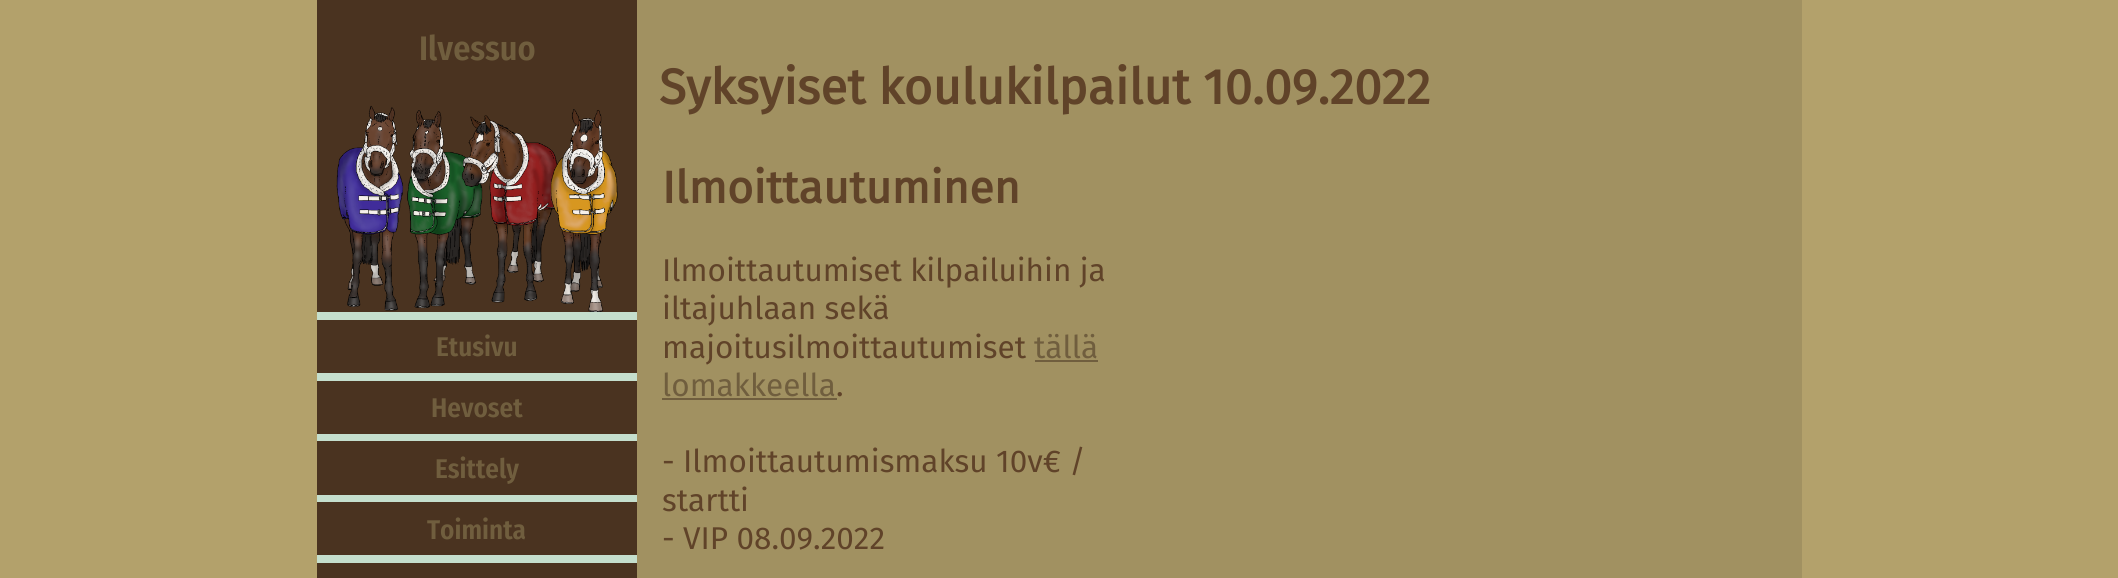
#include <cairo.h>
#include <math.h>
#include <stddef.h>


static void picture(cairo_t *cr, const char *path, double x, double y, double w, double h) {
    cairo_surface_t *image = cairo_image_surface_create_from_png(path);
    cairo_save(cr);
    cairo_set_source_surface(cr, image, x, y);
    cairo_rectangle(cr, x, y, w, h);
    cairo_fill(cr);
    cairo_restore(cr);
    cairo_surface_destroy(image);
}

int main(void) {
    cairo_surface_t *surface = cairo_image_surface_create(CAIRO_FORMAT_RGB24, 2118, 578);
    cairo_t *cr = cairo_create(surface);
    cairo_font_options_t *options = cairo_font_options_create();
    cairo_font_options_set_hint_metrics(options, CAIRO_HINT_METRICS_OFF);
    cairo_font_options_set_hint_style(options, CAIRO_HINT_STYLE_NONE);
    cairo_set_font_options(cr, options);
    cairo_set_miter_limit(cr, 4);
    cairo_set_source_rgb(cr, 0.702, 0.631, 0.42);
    cairo_paint(cr);
    cairo_set_source_rgb(cr, 0.29, 0.2, 0.125);
    cairo_rectangle(cr, 317, 0, 320, 578);
    cairo_fill(cr);
    cairo_select_font_face(cr, "Fira Sans Condensed SemiBold", CAIRO_FONT_SLANT_NORMAL, CAIRO_FONT_WEIGHT_NORMAL);
    cairo_set_font_size(cr, 34);
    cairo_set_source_rgb(cr, 0.439, 0.369, 0.243);
    cairo_move_to(cr, 419, 60);
    cairo_show_text(cr, "Ilvessuo");
    picture(cr, "img1.png", 336, 105, 282, 207);
    cairo_set_source_rgb(cr, 0.773, 0.875, 0.804);
    cairo_rectangle(cr, 317, 312, 320, 8);
    cairo_fill(cr);
    cairo_set_font_size(cr, 27);
    cairo_set_source_rgb(cr, 0.439, 0.369, 0.243);
    cairo_move_to(cr, 436, 356);
    cairo_show_text(cr, "Etusivu");
    cairo_set_source_rgb(cr, 0.773, 0.875, 0.804);
    cairo_rectangle(cr, 317, 373, 320, 8);
    cairo_fill(cr);
    cairo_set_source_rgb(cr, 0.439, 0.369, 0.243);
    cairo_move_to(cr, 431, 417);
    cairo_show_text(cr, "Hevoset");
    cairo_set_source_rgb(cr, 0.773, 0.875, 0.804);
    cairo_rectangle(cr, 317, 434, 320, 7);
    cairo_fill(cr);
    cairo_set_source_rgb(cr, 0.439, 0.369, 0.243);
    cairo_move_to(cr, 435, 478);
    cairo_show_text(cr, "Esittely");
    cairo_set_source_rgb(cr, 0.773, 0.875, 0.804);
    cairo_rectangle(cr, 317, 495, 320, 7);
    cairo_fill(cr);
    cairo_set_source_rgb(cr, 0.439, 0.369, 0.243);
    cairo_move_to(cr, 427, 539);
    cairo_show_text(cr, "Toiminta");
    cairo_set_source_rgb(cr, 0.773, 0.875, 0.804);
    cairo_rectangle(cr, 317, 555, 320, 8);
    cairo_fill(cr);
    cairo_set_source_rgb(cr, 0.631, 0.569, 0.38);
    cairo_rectangle(cr, 637, 0, 1165, 578);
    cairo_fill(cr);
    cairo_select_font_face(cr, "Fira Sans", CAIRO_FONT_SLANT_NORMAL, CAIRO_FONT_WEIGHT_BOLD);
    cairo_set_font_size(cr, 49.5);
    cairo_set_source_rgb(cr, 0.376, 0.263, 0.161);
    cairo_move_to(cr, 659, 104);
    cairo_show_text(cr, "Syksyiset koulukilpailut 10.09.2022");
    cairo_set_font_size(cr, 45);
    cairo_move_to(cr, 662, 203);
    cairo_show_text(cr, "Ilmoittautuminen");
    cairo_select_font_face(cr, "Fira Sans", CAIRO_FONT_SLANT_NORMAL, CAIRO_FONT_WEIGHT_NORMAL);
    cairo_set_font_size(cr, 31.5);
    cairo_move_to(cr, 662, 281);
    cairo_show_text(cr, "Ilmoittautumiset kilpailuihin ja");
    cairo_move_to(cr, 662, 319);
    cairo_show_text(cr, "iltajuhlaan sekä");
    cairo_move_to(cr, 662, 358);
    cairo_show_text(cr, "majoitusilmoittautumiset");
    cairo_set_source_rgb(cr, 0.439, 0.369, 0.243);
    cairo_move_to(cr, 1034, 358);
    cairo_show_text(cr, "tällä");
    cairo_rectangle(cr, 1035, 360, 63, 2);
    cairo_fill(cr);
    cairo_move_to(cr, 662, 396);
    cairo_show_text(cr, "lomakkeella");
    cairo_rectangle(cr, 662, 398, 175, 2);
    cairo_fill(cr);
    cairo_set_source_rgb(cr, 0.376, 0.263, 0.161);
    cairo_move_to(cr, 836, 396);
    cairo_show_text(cr, ".");
    cairo_move_to(cr, 662, 472);
    cairo_show_text(cr, "- Ilmoittautumismaksu 10v€ /");
    cairo_move_to(cr, 662, 511);
    cairo_show_text(cr, "startti");
    cairo_move_to(cr, 662, 549);
    cairo_show_text(cr, "- VIP 08.09.2022");
    cairo_surface_write_to_png(surface, "page.png");
    cairo_font_options_destroy(options);
    cairo_destroy(cr);
    cairo_surface_destroy(surface);
    return 0;
}
